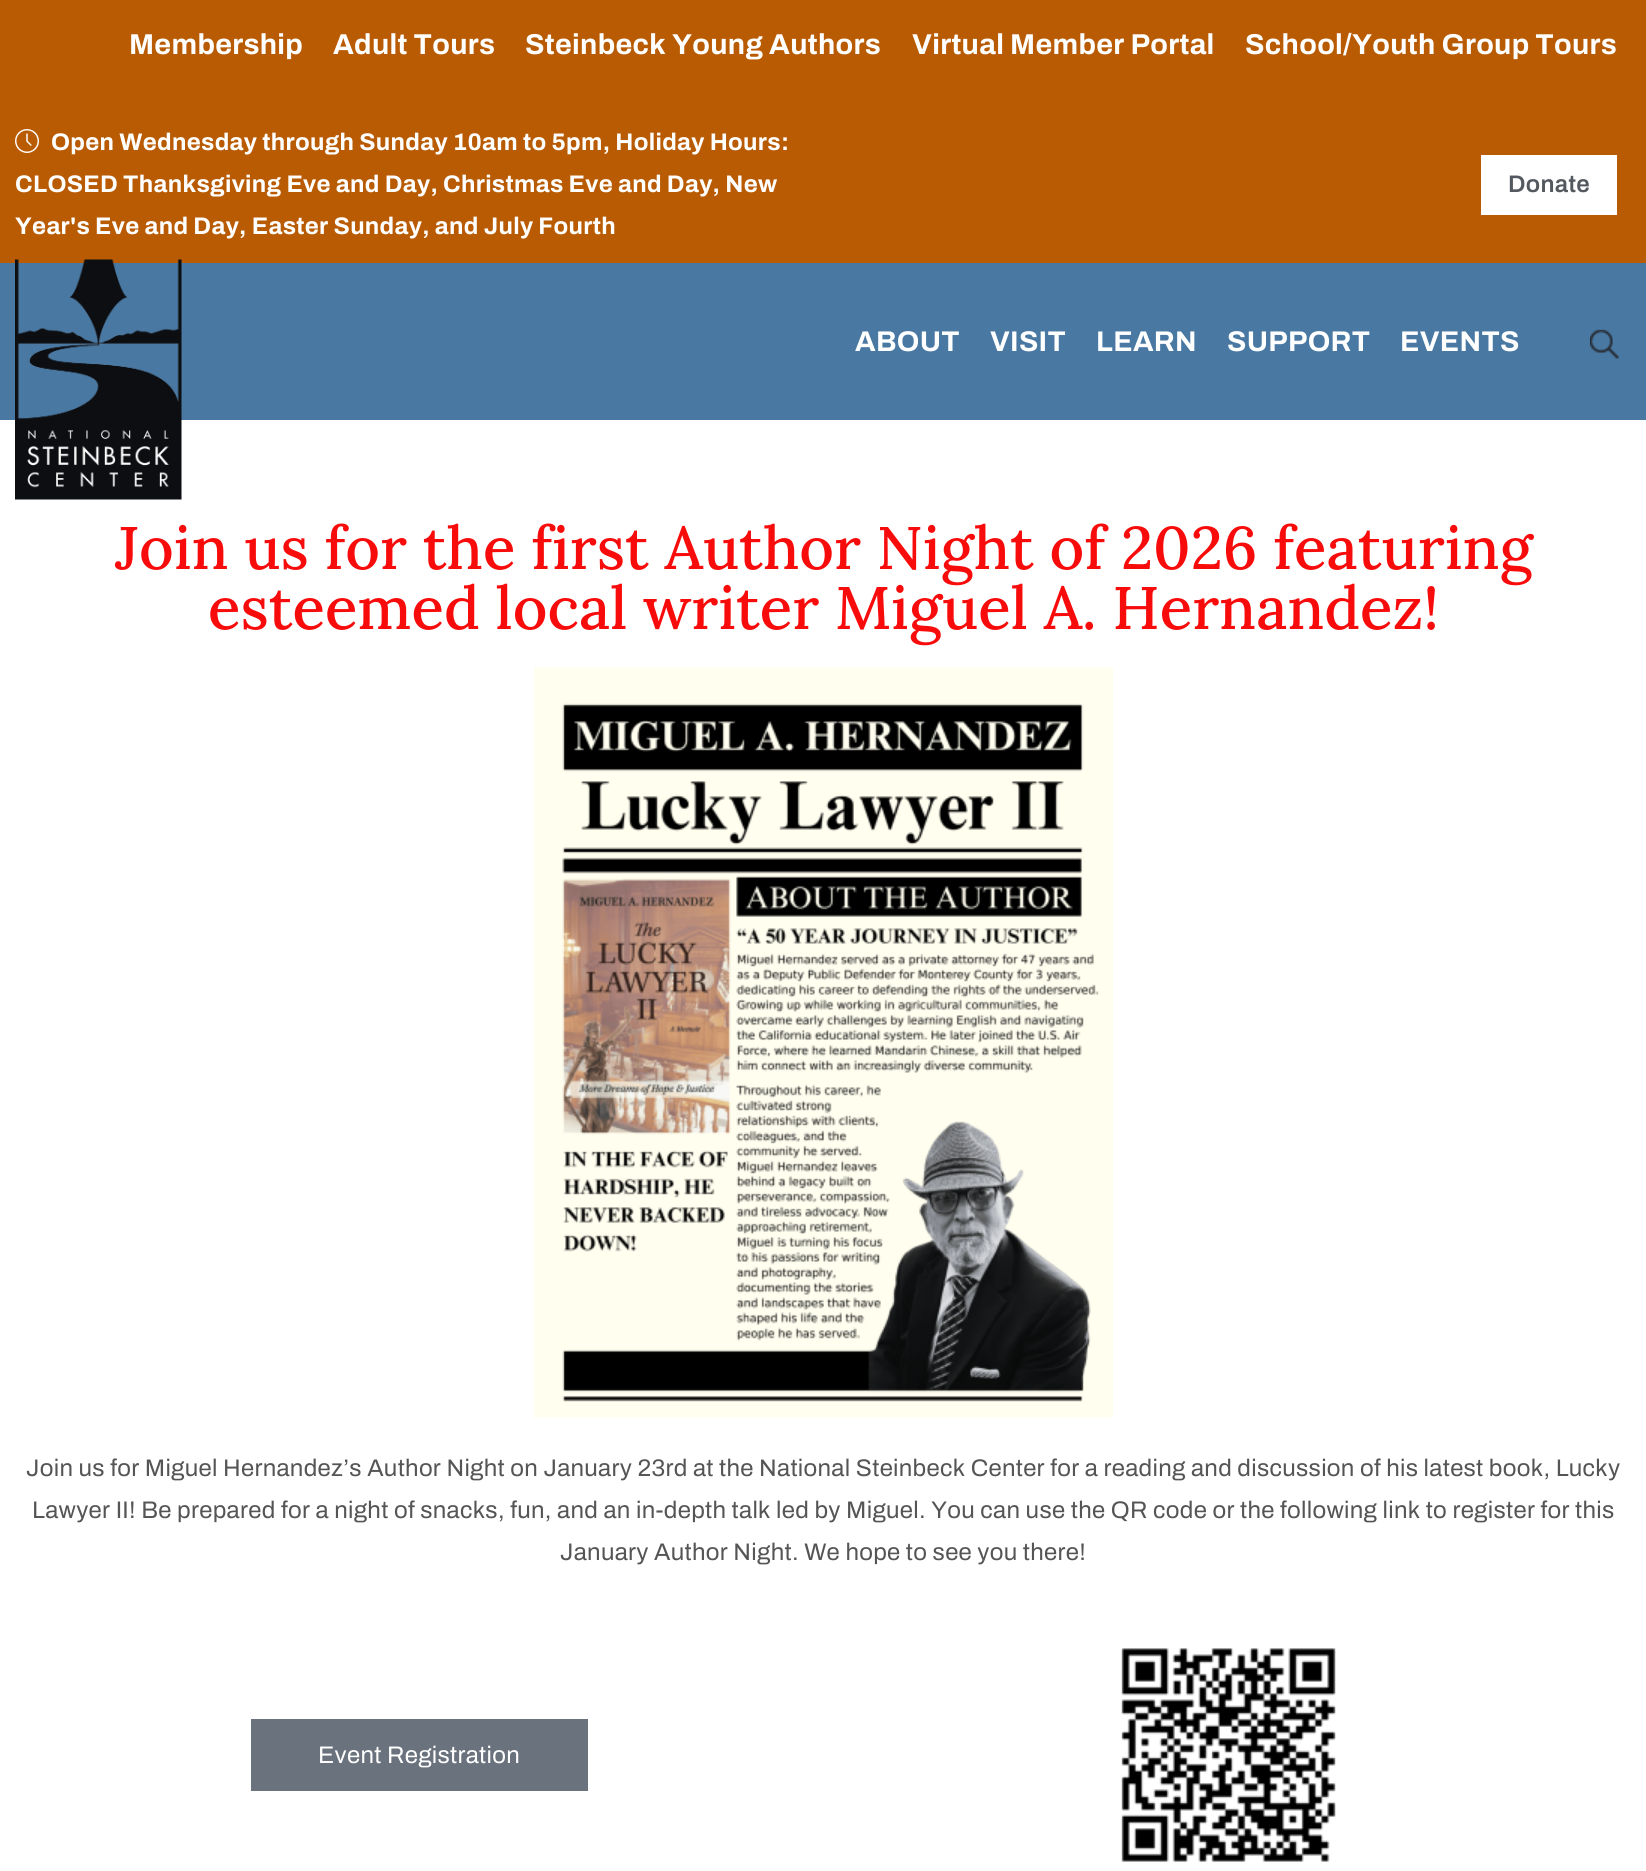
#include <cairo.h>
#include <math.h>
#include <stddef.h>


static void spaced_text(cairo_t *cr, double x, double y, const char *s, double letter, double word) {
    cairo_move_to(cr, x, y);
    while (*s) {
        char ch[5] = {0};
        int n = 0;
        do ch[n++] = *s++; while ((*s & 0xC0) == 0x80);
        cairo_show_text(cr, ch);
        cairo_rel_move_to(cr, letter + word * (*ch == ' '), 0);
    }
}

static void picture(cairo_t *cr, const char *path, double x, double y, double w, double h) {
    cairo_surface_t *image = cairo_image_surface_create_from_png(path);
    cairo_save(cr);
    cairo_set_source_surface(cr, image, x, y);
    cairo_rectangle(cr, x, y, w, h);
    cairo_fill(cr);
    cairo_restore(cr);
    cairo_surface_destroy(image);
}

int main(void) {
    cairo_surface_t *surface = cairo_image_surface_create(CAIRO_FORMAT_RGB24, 1646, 1871);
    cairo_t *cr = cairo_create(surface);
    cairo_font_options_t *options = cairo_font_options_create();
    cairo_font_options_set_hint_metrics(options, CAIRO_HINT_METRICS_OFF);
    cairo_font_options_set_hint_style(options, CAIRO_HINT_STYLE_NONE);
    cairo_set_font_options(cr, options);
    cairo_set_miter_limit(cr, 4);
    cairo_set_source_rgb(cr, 1, 1, 1);
    cairo_paint(cr);
    cairo_set_source_rgb(cr, 0.725, 0.357, 0.012);
    cairo_rectangle(cr, 0, 0, 1646, 263);
    cairo_fill(cr);
    cairo_select_font_face(cr, "Archivo", CAIRO_FONT_SLANT_NORMAL, CAIRO_FONT_WEIGHT_BOLD);
    cairo_set_font_size(cr, 28.75);
    cairo_set_source_rgb(cr, 1, 1, 1);
    spaced_text(cr, 129, 54, "Membership", 0.3, 0);
    spaced_text(cr, 333, 54, "Adult Tours", 0.3, 0);
    spaced_text(cr, 525, 54, "Steinbeck Young Authors", 0.3, 0);
    spaced_text(cr, 912, 54, "Virtual Member Portal", 0.3, 0);
    spaced_text(cr, 1245, 54, "School/Youth Group Tours", 0.3, 0);
    picture(cr, "img1.png", 15, 129, 24, 24);
    cairo_set_font_size(cr, 24);
    spaced_text(cr, 51, 150, "Open Wednesday through Sunday 10am to 5pm, Holiday Hours:", 0.3, 0);
    spaced_text(cr, 15, 192, "CLOSED Thanksgiving Eve and Day, Christmas Eve and Day, New", 0.3, 0);
    spaced_text(cr, 15, 234, "Year's Eve and Day, Easter Sunday, and July Fourth", 0.3, 0);
    cairo_rectangle(cr, 1481, 155, 136, 60);
    cairo_fill(cr);
    cairo_select_font_face(cr, "Archivo SemiBold", CAIRO_FONT_SLANT_NORMAL, CAIRO_FONT_WEIGHT_NORMAL);
    cairo_set_source_rgb(cr, 0.329, 0.349, 0.373);
    spaced_text(cr, 1508, 192, "Donate", 0.3, 0);
    cairo_set_source_rgb(cr, 0.286, 0.471, 0.635);
    cairo_rectangle(cr, 0, 263, 1646, 157);
    cairo_fill(cr);
    picture(cr, "img2.png", 15, 259, 167, 241);
    cairo_select_font_face(cr, "Archivo", CAIRO_FONT_SLANT_NORMAL, CAIRO_FONT_WEIGHT_BOLD);
    cairo_set_font_size(cr, 28.5);
    cairo_set_source_rgb(cr, 1, 1, 1);
    spaced_text(cr, 855, 351, "ABOUT", 0.3, 0);
    spaced_text(cr, 990, 351, "VISIT", 0.3, 0);
    spaced_text(cr, 1096, 351, "LEARN", 0.3, 0);
    spaced_text(cr, 1227, 351, "SUPPORT", 0.3, 0);
    spaced_text(cr, 1400, 351, "EVENTS", 0.3, 0);
    picture(cr, "img3.png", 1590, 329, 29, 30);
    cairo_select_font_face(cr, "Lora Medium", CAIRO_FONT_SLANT_NORMAL, CAIRO_FONT_WEIGHT_NORMAL);
    cairo_set_font_size(cr, 60);
    cairo_set_source_rgb(cr, 0.969, 0.043, 0.043);
    cairo_move_to(cr, 115, 569);
    cairo_show_text(cr, "Join us for the first Author Night of 2026 featuring");
    cairo_move_to(cr, 208, 629);
    cairo_show_text(cr, "esteemed local writer Miguel A. Hernandez!");
    picture(cr, "img4.png", 534, 667, 579, 751);
    cairo_select_font_face(cr, "Archivo", CAIRO_FONT_SLANT_NORMAL, CAIRO_FONT_WEIGHT_NORMAL);
    cairo_set_font_size(cr, 24);
    cairo_set_source_rgb(cr, 0.333, 0.333, 0.333);
    spaced_text(cr, 26, 1476, "Join us for Miguel Hernandez’s Author Night on January 23rd at the National Steinbeck Center for a reading and discussion of his latest book, Lucky", 0.3, 0);
    spaced_text(cr, 32, 1518, "Lawyer II! Be prepared for a night of snacks, fun, and an in-depth talk led by Miguel. You can use the QR code or the following link to register for this", 0.3, 0);
    spaced_text(cr, 560, 1560, "January Author Night. We hope to see you there!", 0.3, 0);
    cairo_set_source_rgb(cr, 0.412, 0.447, 0.49);
    cairo_rectangle(cr, 251, 1719, 337, 72);
    cairo_fill(cr);
    cairo_set_source_rgb(cr, 1, 1, 1);
    spaced_text(cr, 318, 1763, "Event Registration", 0.3, 0);
    picture(cr, "img5.png", 1121, 1648, 215, 215);
    cairo_surface_write_to_png(surface, "page.png");
    cairo_font_options_destroy(options);
    cairo_destroy(cr);
    cairo_surface_destroy(surface);
    return 0;
}
